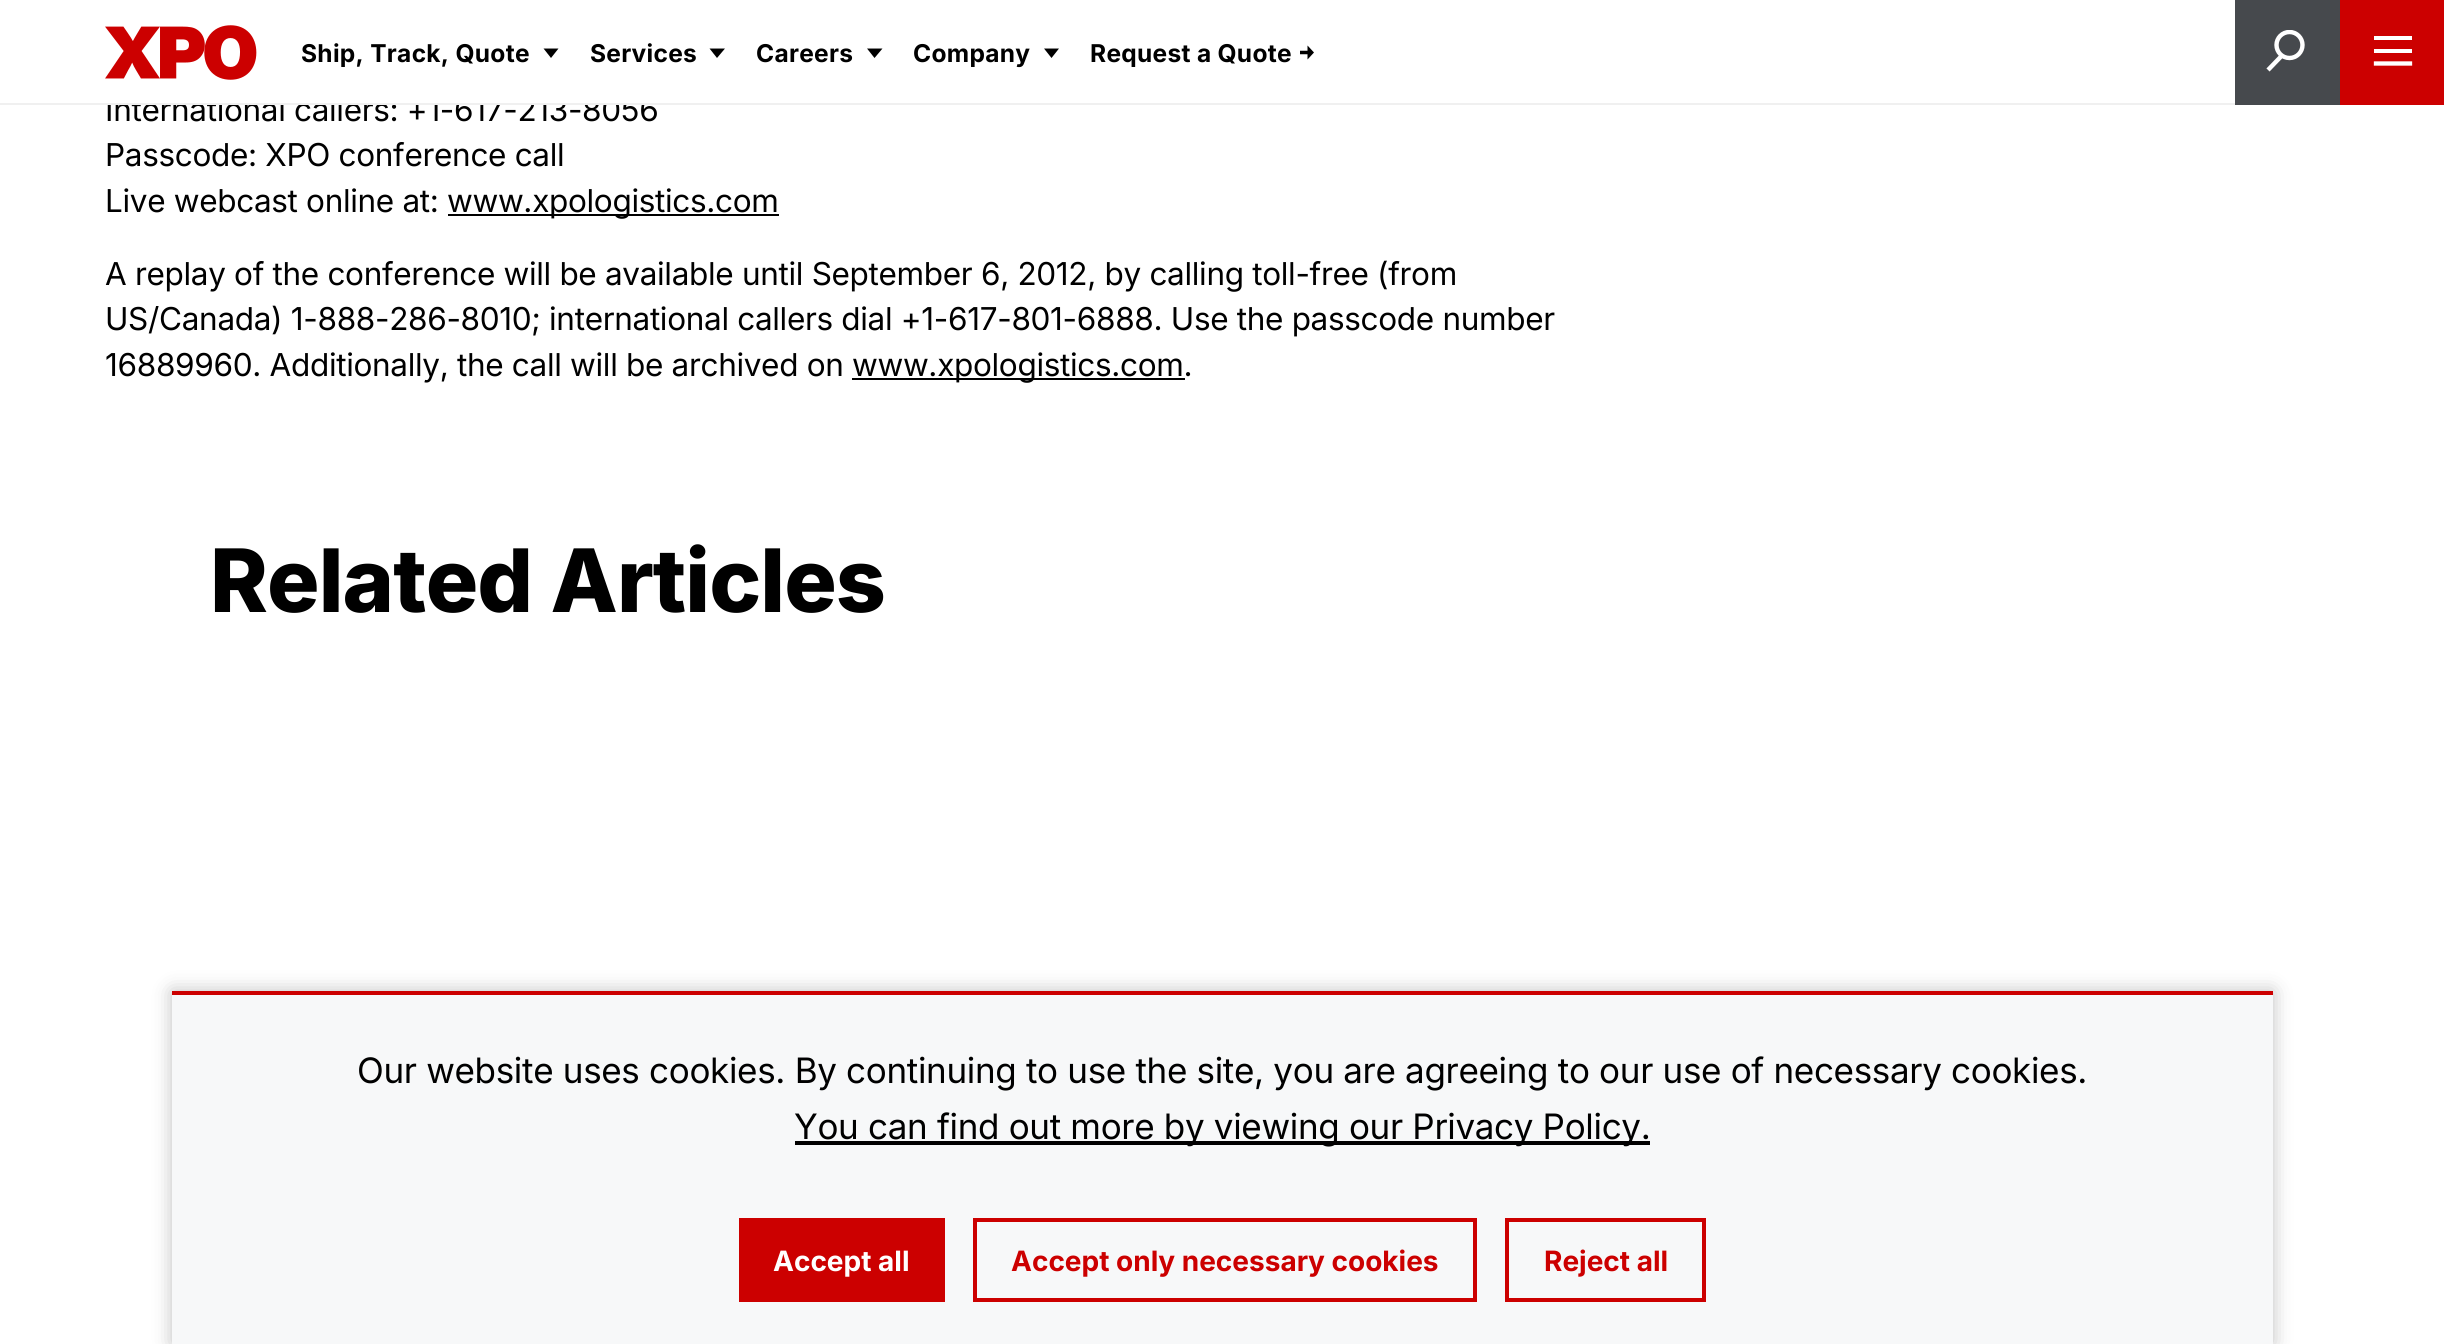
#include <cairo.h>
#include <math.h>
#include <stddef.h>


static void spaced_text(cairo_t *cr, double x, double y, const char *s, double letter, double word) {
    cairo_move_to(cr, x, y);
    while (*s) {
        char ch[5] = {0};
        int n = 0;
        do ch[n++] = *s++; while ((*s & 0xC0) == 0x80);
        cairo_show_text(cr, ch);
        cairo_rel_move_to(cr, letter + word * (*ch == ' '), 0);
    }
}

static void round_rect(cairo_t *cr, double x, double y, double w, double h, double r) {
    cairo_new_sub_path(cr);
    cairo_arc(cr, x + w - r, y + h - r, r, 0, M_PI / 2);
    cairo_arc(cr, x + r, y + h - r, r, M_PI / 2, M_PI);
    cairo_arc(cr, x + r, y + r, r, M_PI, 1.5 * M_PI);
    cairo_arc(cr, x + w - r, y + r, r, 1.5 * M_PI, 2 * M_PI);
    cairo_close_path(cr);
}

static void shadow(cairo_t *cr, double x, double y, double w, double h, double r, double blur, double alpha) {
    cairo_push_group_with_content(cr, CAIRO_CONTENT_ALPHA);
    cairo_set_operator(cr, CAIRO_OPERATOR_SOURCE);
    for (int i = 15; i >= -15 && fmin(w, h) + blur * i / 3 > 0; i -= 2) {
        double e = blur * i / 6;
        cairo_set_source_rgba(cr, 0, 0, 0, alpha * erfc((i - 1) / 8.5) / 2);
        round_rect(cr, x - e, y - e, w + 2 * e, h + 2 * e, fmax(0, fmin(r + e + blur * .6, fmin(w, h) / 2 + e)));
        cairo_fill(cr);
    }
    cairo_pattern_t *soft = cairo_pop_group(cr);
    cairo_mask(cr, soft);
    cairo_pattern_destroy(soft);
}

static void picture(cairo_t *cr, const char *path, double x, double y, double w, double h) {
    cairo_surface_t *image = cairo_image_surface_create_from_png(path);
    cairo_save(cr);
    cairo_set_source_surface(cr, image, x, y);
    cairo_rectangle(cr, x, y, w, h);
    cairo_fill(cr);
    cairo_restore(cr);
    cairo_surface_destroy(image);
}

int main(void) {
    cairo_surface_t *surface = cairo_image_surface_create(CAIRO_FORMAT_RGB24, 2444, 1344);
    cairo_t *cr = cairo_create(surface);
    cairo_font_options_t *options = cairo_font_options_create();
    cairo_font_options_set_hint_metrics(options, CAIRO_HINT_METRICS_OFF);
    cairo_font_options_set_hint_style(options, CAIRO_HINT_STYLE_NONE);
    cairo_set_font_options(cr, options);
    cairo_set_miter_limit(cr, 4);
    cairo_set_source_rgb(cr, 1, 1, 1);
    cairo_paint(cr);
    cairo_select_font_face(cr, "Inter", CAIRO_FONT_SLANT_NORMAL, CAIRO_FONT_WEIGHT_NORMAL);
    cairo_set_font_size(cr, 31.5);
    cairo_set_source_rgb(cr, 0, 0, 0);
    spaced_text(cr, 105, 121, "International callers: +1-617-213-8056", -0.32, 0);
    cairo_set_source_rgb(cr, 1, 1, 1);
    cairo_rectangle(cr, 107, 97, 550, 6);
    cairo_fill(cr);
    cairo_set_source_rgb(cr, 0.941, 0.941, 0.941);
    cairo_rectangle(cr, 0, 103, 2235, 2);
    cairo_fill(cr);
    picture(cr, "img1.png", 105, 25, 152, 55);
    cairo_select_font_face(cr, "Inter", CAIRO_FONT_SLANT_NORMAL, CAIRO_FONT_WEIGHT_BOLD);
    cairo_set_font_size(cr, 24.5);
    cairo_set_source_rgb(cr, 0, 0, 0);
    spaced_text(cr, 301, 62, "Ship, Track, Quote", 0.3, 0);
    cairo_new_path(cr);
    cairo_move_to(cr, 551, 58);
    cairo_line_to(cr, 543.5, 48.5);
    cairo_line_to(cr, 558.5, 48.5);
    cairo_close_path(cr);
    cairo_fill(cr);
    spaced_text(cr, 590, 62, "Services", 0.3, 0);
    cairo_new_path(cr);
    cairo_move_to(cr, 717, 58);
    cairo_line_to(cr, 709.5, 48.5);
    cairo_line_to(cr, 725, 48.5);
    cairo_close_path(cr);
    cairo_fill(cr);
    spaced_text(cr, 756, 62, "Careers", 0.3, 0);
    cairo_new_path(cr);
    cairo_move_to(cr, 874.5, 58);
    cairo_line_to(cr, 867, 48.5);
    cairo_line_to(cr, 882.5, 48.5);
    cairo_close_path(cr);
    cairo_fill(cr);
    spaced_text(cr, 913, 62, "Company", 0.3, 0);
    cairo_new_path(cr);
    cairo_move_to(cr, 1051.5, 58);
    cairo_line_to(cr, 1044, 48.5);
    cairo_line_to(cr, 1059, 48.5);
    cairo_close_path(cr);
    cairo_fill(cr);
    spaced_text(cr, 1090, 62, "Request a Quote", 0.3, 0);
    cairo_new_path(cr);
    cairo_move_to(cr, 1300, 52.5);
    cairo_line_to(cr, 1311.5, 52.5);
    cairo_set_line_width(cr, 3.5);
    cairo_stroke(cr);
    cairo_new_path(cr);
    cairo_move_to(cr, 1307.5, 59.5);
    cairo_line_to(cr, 1307.5, 45.5);
    cairo_line_to(cr, 1314, 52.5);
    cairo_close_path(cr);
    cairo_fill(cr);
    cairo_set_source_rgb(cr, 0.275, 0.286, 0.302);
    cairo_rectangle(cr, 2235, 0, 105, 105);
    cairo_fill(cr);
    cairo_save(cr);
    cairo_rectangle(cr, 2266, 30, 41, 42);
    cairo_clip(cr);
    cairo_arc(cr, 2289.5, 45, 13, 0, 2 * M_PI);
    cairo_set_source_rgb(cr, 1, 1, 1);
    cairo_set_line_width(cr, 4.4);
    cairo_stroke(cr);
    cairo_restore(cr);
    cairo_new_path(cr);
    cairo_move_to(cr, 2281, 56.5);
    cairo_line_to(cr, 2268, 70);
    cairo_set_source_rgb(cr, 1, 1, 1);
    cairo_set_line_width(cr, 4.4);
    cairo_stroke(cr);
    cairo_set_source_rgb(cr, 0.8, 0, 0);
    cairo_rectangle(cr, 2340, 0, 104, 105);
    cairo_fill(cr);
    cairo_set_source_rgb(cr, 1, 1, 1);
    cairo_rectangle(cr, 2374, 36, 38, 4);
    cairo_fill(cr);
    cairo_rectangle(cr, 2374, 49, 38, 4);
    cairo_fill(cr);
    cairo_new_path(cr);
    cairo_move_to(cr, 2376, 63.5);
    cairo_line_to(cr, 2410, 63.5);
    cairo_set_line_width(cr, 4.3);
    cairo_set_line_cap(cr, CAIRO_LINE_CAP_SQUARE);
    cairo_set_line_join(cr, CAIRO_LINE_JOIN_ROUND);
    cairo_stroke(cr);
    cairo_select_font_face(cr, "Inter", CAIRO_FONT_SLANT_NORMAL, CAIRO_FONT_WEIGHT_NORMAL);
    cairo_set_font_size(cr, 31.5);
    cairo_set_source_rgb(cr, 0, 0, 0);
    spaced_text(cr, 105, 166, "Passcode: XPO conference call", -0.32, 0);
    spaced_text(cr, 105, 212, "Live webcast online at:", -0.32, 0);
    cairo_rectangle(cr, 448, 214, 331, 2);
    cairo_fill(cr);
    spaced_text(cr, 447, 212, "www.xpologistics.com", -0.32, 0);
    spaced_text(cr, 105, 285, "A replay of the conference will be available until September 6, 2012, by calling toll-free (from", -0.32, 0);
    spaced_text(cr, 105, 330, "US/Canada) 1-888-286-8010; international callers dial +1-617-801-6888. Use the passcode number", -0.32, 0);
    spaced_text(cr, 105, 376, "16889960. Additionally, the call will be archived on", -0.32, 0);
    cairo_rectangle(cr, 852, 378, 333, 2);
    cairo_fill(cr);
    spaced_text(cr, 852, 376, "www.xpologistics.com.", -0.32, 0);
    cairo_select_font_face(cr, "Inter ExtraBold", CAIRO_FONT_SLANT_NORMAL, CAIRO_FONT_WEIGHT_NORMAL);
    cairo_set_font_size(cr, 87.5);
    spaced_text(cr, 210, 612, "Related Articles", -0.9, 0);
    cairo_set_source_rgb(cr, 0, 0, 0);
    shadow(cr, 172, 991, 2101, 353, 0, 9.5, 0.25);
    cairo_set_source_rgb(cr, 0.965, 0.969, 0.973);
    cairo_rectangle(cr, 172, 995, 2101, 349);
    cairo_fill(cr);
    cairo_set_source_rgb(cr, 0.8, 0, 0);
    cairo_rectangle(cr, 172, 991, 2101, 4);
    cairo_fill(cr);
    cairo_select_font_face(cr, "Inter", CAIRO_FONT_SLANT_NORMAL, CAIRO_FONT_WEIGHT_NORMAL);
    cairo_set_font_size(cr, 35);
    cairo_set_source_rgb(cr, 0, 0, 0);
    spaced_text(cr, 357, 1083, "Our website uses cookies. By continuing to use the site, you are agreeing to our use of necessary cookies.", -0.32, 0);
    cairo_rectangle(cr, 795, 1141, 855, 4);
    cairo_fill(cr);
    spaced_text(cr, 794, 1139, "You can find out more by viewing our Privacy Policy.", -0.32, 0);
    cairo_set_source_rgb(cr, 0.8, 0, 0);
    cairo_rectangle(cr, 739, 1218, 206, 84);
    cairo_fill(cr);
    cairo_select_font_face(cr, "Inter", CAIRO_FONT_SLANT_NORMAL, CAIRO_FONT_WEIGHT_BOLD);
    cairo_set_font_size(cr, 28);
    cairo_set_source_rgb(cr, 1, 1, 1);
    cairo_move_to(cr, 773, 1271);
    cairo_show_text(cr, "Accept all");
    cairo_rectangle(cr, 975, 1220, 500, 80);
    cairo_set_source_rgb(cr, 0.8, 0, 0);
    cairo_set_line_width(cr, 4);
    cairo_set_line_cap(cr, CAIRO_LINE_CAP_BUTT);
    cairo_set_line_join(cr, CAIRO_LINE_JOIN_MITER);
    cairo_stroke(cr);
    cairo_move_to(cr, 1011, 1271);
    cairo_show_text(cr, "Accept only necessary cookies");
    cairo_rectangle(cr, 1507, 1220, 197, 80);
    cairo_stroke(cr);
    cairo_move_to(cr, 1544, 1271);
    cairo_show_text(cr, "Reject all");
    cairo_surface_write_to_png(surface, "page.png");
    cairo_font_options_destroy(options);
    cairo_destroy(cr);
    cairo_surface_destroy(surface);
    return 0;
}
